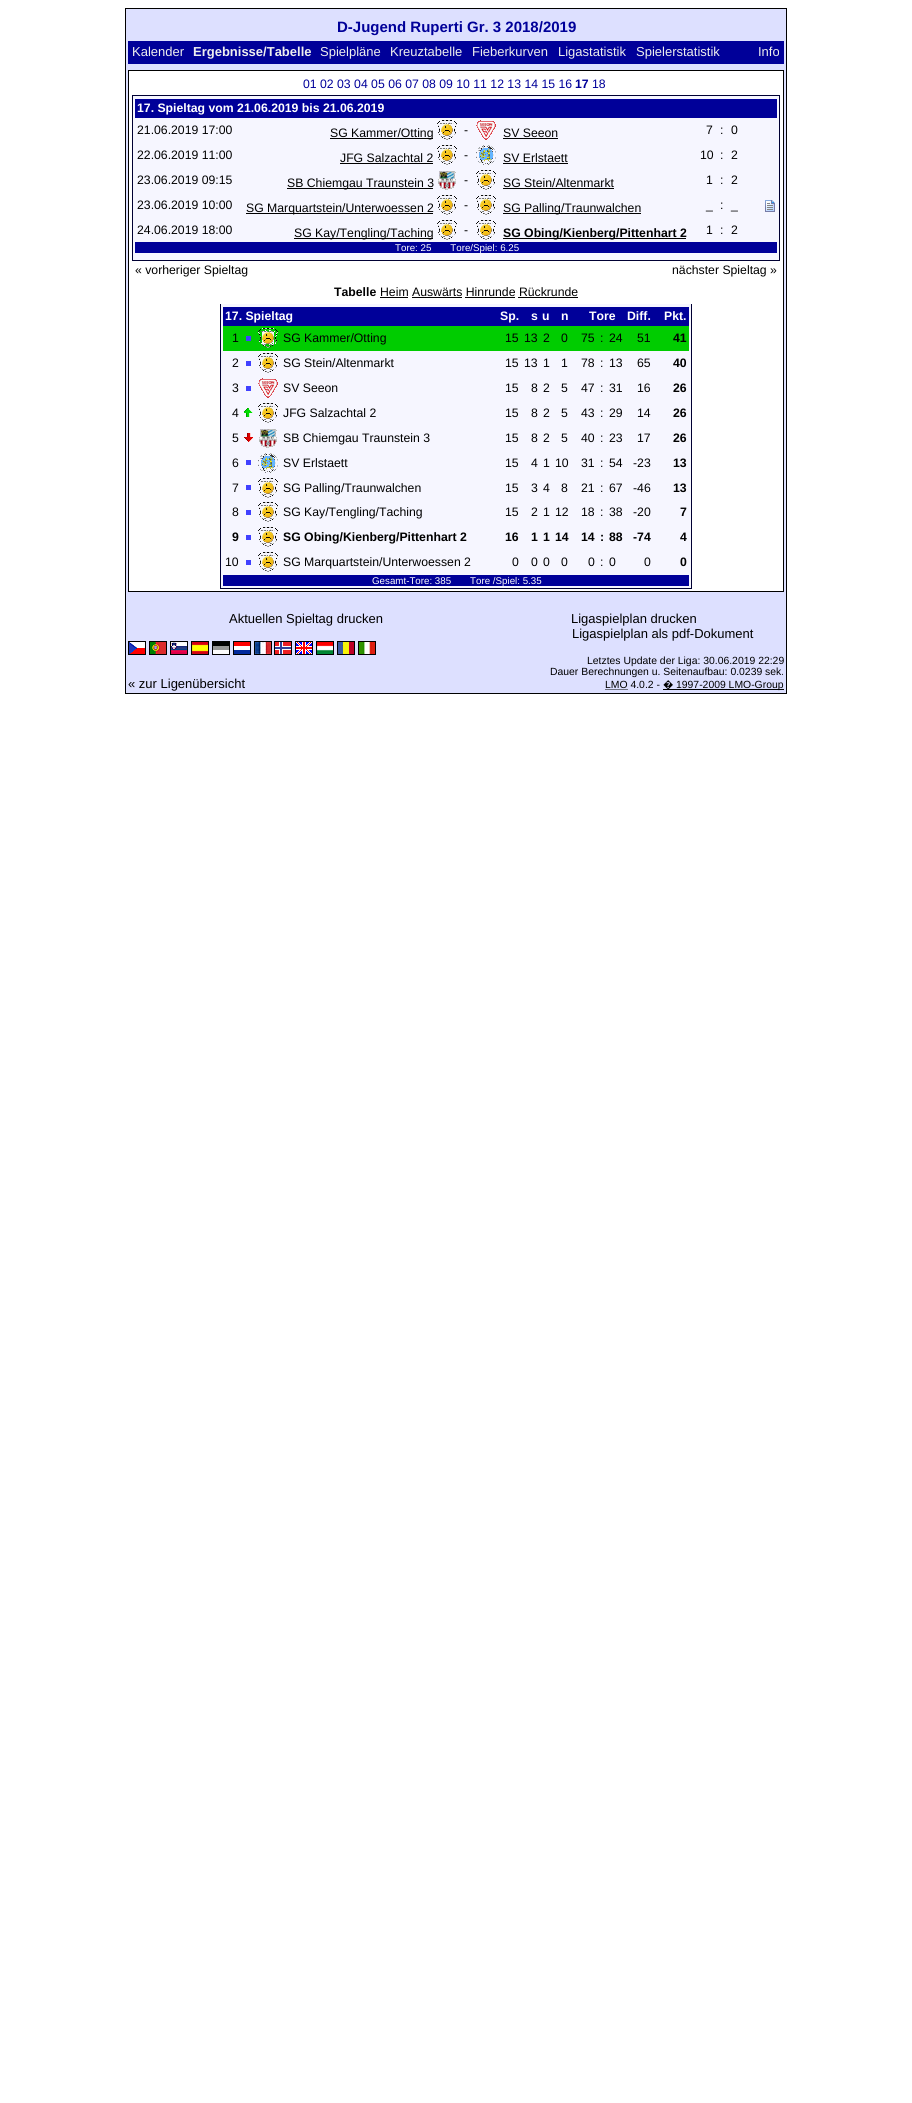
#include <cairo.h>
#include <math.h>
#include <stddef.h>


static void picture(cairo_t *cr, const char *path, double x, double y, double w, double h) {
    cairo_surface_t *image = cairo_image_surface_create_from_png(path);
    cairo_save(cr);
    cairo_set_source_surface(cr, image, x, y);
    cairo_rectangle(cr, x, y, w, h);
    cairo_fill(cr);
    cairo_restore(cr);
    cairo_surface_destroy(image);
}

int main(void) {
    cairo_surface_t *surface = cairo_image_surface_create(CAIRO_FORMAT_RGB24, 912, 2103);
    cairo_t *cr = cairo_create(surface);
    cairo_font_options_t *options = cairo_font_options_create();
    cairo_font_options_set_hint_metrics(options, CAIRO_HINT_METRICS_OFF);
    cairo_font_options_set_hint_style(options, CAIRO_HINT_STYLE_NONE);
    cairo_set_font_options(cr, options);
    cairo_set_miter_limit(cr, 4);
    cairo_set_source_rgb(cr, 1, 1, 1);
    cairo_paint(cr);
    cairo_set_source_rgb(cr, 0.867, 0.878, 1);
    cairo_rectangle(cr, 125.5, 8.5, 661, 685);
    cairo_fill_preserve(cr);
    cairo_set_source_rgb(cr, 0, 0, 0);
    cairo_set_line_width(cr, 1);
    cairo_stroke(cr);
    cairo_select_font_face(cr, "Liberation Sans", CAIRO_FONT_SLANT_NORMAL, CAIRO_FONT_WEIGHT_BOLD);
    cairo_set_font_size(cr, 15);
    cairo_set_source_rgb(cr, 0, 0, 0.6);
    cairo_move_to(cr, 337, 32);
    cairo_show_text(cr, "D-Jugend Ruperti Gr. 3 2018/2019");
    cairo_rectangle(cr, 128, 41, 656, 23);
    cairo_fill(cr);
    cairo_select_font_face(cr, "Liberation Sans", CAIRO_FONT_SLANT_NORMAL, CAIRO_FONT_WEIGHT_NORMAL);
    cairo_set_font_size(cr, 13);
    cairo_set_source_rgb(cr, 0.933, 0.933, 0.933);
    cairo_move_to(cr, 132, 56);
    cairo_show_text(cr, "Kalender");
    cairo_select_font_face(cr, "Liberation Sans", CAIRO_FONT_SLANT_NORMAL, CAIRO_FONT_WEIGHT_BOLD);
    cairo_move_to(cr, 193, 56);
    cairo_show_text(cr, "Ergebnisse/Tabelle");
    cairo_select_font_face(cr, "Liberation Sans", CAIRO_FONT_SLANT_NORMAL, CAIRO_FONT_WEIGHT_NORMAL);
    cairo_move_to(cr, 320, 56);
    cairo_show_text(cr, "Spielpläne");
    cairo_move_to(cr, 390, 56);
    cairo_show_text(cr, "Kreuztabelle");
    cairo_move_to(cr, 472, 56);
    cairo_show_text(cr, "Fieberkurven");
    cairo_move_to(cr, 558, 56);
    cairo_show_text(cr, "Ligastatistik");
    cairo_move_to(cr, 636, 56);
    cairo_show_text(cr, "Spielerstatistik");
    cairo_move_to(cr, 758, 56);
    cairo_show_text(cr, "Info");
    cairo_set_source_rgb(cr, 1, 1, 1);
    cairo_rectangle(cr, 128.5, 70.5, 655, 521);
    cairo_fill_preserve(cr);
    cairo_set_source_rgb(cr, 0, 0, 0);
    cairo_stroke(cr);
    cairo_set_font_size(cr, 12.25);
    cairo_set_source_rgb(cr, 0, 0, 0.6);
    cairo_move_to(cr, 303, 88);
    cairo_show_text(cr, "01 02 03 04 05 06 07 08 09 10 11 12 13 14 15 16");
    cairo_select_font_face(cr, "Liberation Sans", CAIRO_FONT_SLANT_NORMAL, CAIRO_FONT_WEIGHT_BOLD);
    cairo_move_to(cr, 575, 88);
    cairo_show_text(cr, "17");
    cairo_select_font_face(cr, "Liberation Sans", CAIRO_FONT_SLANT_NORMAL, CAIRO_FONT_WEIGHT_NORMAL);
    cairo_move_to(cr, 592, 88);
    cairo_show_text(cr, "18");
    cairo_set_source_rgb(cr, 0.961, 0.961, 1);
    cairo_rectangle(cr, 132.5, 95.5, 647, 165);
    cairo_fill_preserve(cr);
    cairo_set_source_rgb(cr, 0, 0, 0.2);
    cairo_stroke(cr);
    cairo_set_source_rgb(cr, 0, 0, 0.6);
    cairo_rectangle(cr, 135, 99, 642, 19);
    cairo_fill(cr);
    cairo_select_font_face(cr, "Liberation Sans", CAIRO_FONT_SLANT_NORMAL, CAIRO_FONT_WEIGHT_BOLD);
    cairo_set_source_rgb(cr, 1, 1, 1);
    cairo_move_to(cr, 137, 112);
    cairo_show_text(cr, "17. Spieltag vom 21.06.2019 bis 21.06.2019");
    cairo_select_font_face(cr, "Liberation Sans", CAIRO_FONT_SLANT_NORMAL, CAIRO_FONT_WEIGHT_NORMAL);
    cairo_set_source_rgb(cr, 0, 0, 0);
    cairo_move_to(cr, 137, 134);
    cairo_show_text(cr, "21.06.2019 17:00");
    cairo_rectangle(cr, 330, 138, 103, 1);
    cairo_fill(cr);
    cairo_move_to(cr, 330, 137);
    cairo_show_text(cr, "SG Kammer/Otting");
    picture(cr, "img1.png", 437, 120, 20, 20);
    cairo_move_to(cr, 464, 134);
    cairo_show_text(cr, "-");
    picture(cr, "img2.png", 476, 120, 20, 20);
    cairo_move_to(cr, 503, 137);
    cairo_show_text(cr, "SV Seeon");
    cairo_rectangle(cr, 503, 138, 55, 1);
    cairo_fill(cr);
    cairo_move_to(cr, 706, 134);
    cairo_show_text(cr, "7");
    cairo_move_to(cr, 720, 134);
    cairo_show_text(cr, ":");
    cairo_move_to(cr, 731, 134);
    cairo_show_text(cr, "0");
    cairo_move_to(cr, 137, 159);
    cairo_show_text(cr, "22.06.2019 11:00");
    cairo_move_to(cr, 340, 162);
    cairo_show_text(cr, "JFG Salzachtal 2");
    cairo_rectangle(cr, 340, 163, 93, 1);
    cairo_fill(cr);
    picture(cr, "img1.png", 437, 145, 20, 20);
    cairo_move_to(cr, 464, 159);
    cairo_show_text(cr, "-");
    picture(cr, "img3.png", 476, 145, 20, 20);
    cairo_move_to(cr, 503, 162);
    cairo_show_text(cr, "SV Erlstaett");
    cairo_rectangle(cr, 503, 163, 65, 1);
    cairo_fill(cr);
    cairo_move_to(cr, 700, 159);
    cairo_show_text(cr, "10");
    cairo_move_to(cr, 720, 159);
    cairo_show_text(cr, ":");
    cairo_move_to(cr, 731, 159);
    cairo_show_text(cr, "2");
    cairo_move_to(cr, 137, 184);
    cairo_show_text(cr, "23.06.2019 09:15");
    cairo_rectangle(cr, 287, 188, 146, 1);
    cairo_fill(cr);
    cairo_move_to(cr, 287, 187);
    cairo_show_text(cr, "SB Chiemgau Traunstein 3");
    picture(cr, "img4.png", 438, 171, 18, 19);
    cairo_move_to(cr, 464, 184);
    cairo_show_text(cr, "-");
    picture(cr, "img1.png", 476, 170, 20, 20);
    cairo_move_to(cr, 503, 187);
    cairo_show_text(cr, "SG Stein/Altenmarkt");
    cairo_rectangle(cr, 503, 188, 111, 1);
    cairo_fill(cr);
    cairo_move_to(cr, 706, 184);
    cairo_show_text(cr, "1");
    cairo_move_to(cr, 720, 184);
    cairo_show_text(cr, ":");
    cairo_move_to(cr, 731, 184);
    cairo_show_text(cr, "2");
    cairo_move_to(cr, 137, 209);
    cairo_show_text(cr, "23.06.2019 10:00");
    cairo_rectangle(cr, 246, 213, 187, 1);
    cairo_fill(cr);
    cairo_move_to(cr, 246, 212);
    cairo_show_text(cr, "SG Marquartstein/Unterwoessen 2");
    picture(cr, "img1.png", 437, 195, 20, 20);
    cairo_move_to(cr, 464, 209);
    cairo_show_text(cr, "-");
    picture(cr, "img1.png", 476, 195, 20, 20);
    cairo_rectangle(cr, 503, 213, 138, 1);
    cairo_fill(cr);
    cairo_move_to(cr, 503, 212);
    cairo_show_text(cr, "SG Palling/Traunwalchen");
    cairo_move_to(cr, 720, 209);
    cairo_show_text(cr, ":");
    picture(cr, "img5.png", 765, 200, 10, 12);
    cairo_move_to(cr, 706, 209);
    cairo_show_text(cr, "_");
    cairo_move_to(cr, 731, 209);
    cairo_show_text(cr, "_");
    cairo_move_to(cr, 137, 234);
    cairo_show_text(cr, "24.06.2019 18:00");
    cairo_rectangle(cr, 294, 238, 139, 1);
    cairo_fill(cr);
    cairo_move_to(cr, 294, 237);
    cairo_show_text(cr, "SG Kay/Tengling/Taching");
    picture(cr, "img1.png", 437, 220, 20, 20);
    cairo_move_to(cr, 464, 234);
    cairo_show_text(cr, "-");
    picture(cr, "img1.png", 476, 220, 20, 20);
    cairo_rectangle(cr, 503, 238, 183, 1);
    cairo_fill(cr);
    cairo_select_font_face(cr, "Liberation Sans", CAIRO_FONT_SLANT_NORMAL, CAIRO_FONT_WEIGHT_BOLD);
    cairo_move_to(cr, 503, 237);
    cairo_show_text(cr, "SG Obing/Kienberg/Pittenhart 2");
    cairo_select_font_face(cr, "Liberation Sans", CAIRO_FONT_SLANT_NORMAL, CAIRO_FONT_WEIGHT_NORMAL);
    cairo_move_to(cr, 706, 234);
    cairo_show_text(cr, "1");
    cairo_move_to(cr, 720, 234);
    cairo_show_text(cr, ":");
    cairo_move_to(cr, 731, 234);
    cairo_show_text(cr, "2");
    cairo_set_source_rgb(cr, 0, 0, 0.6);
    cairo_rectangle(cr, 135, 242, 642, 11);
    cairo_fill(cr);
    cairo_set_font_size(cr, 9.75);
    cairo_set_source_rgb(cr, 1, 1, 1);
    cairo_move_to(cr, 395, 251);
    cairo_show_text(cr, "Tore: 25       Tore/Spiel: 6.25");
    cairo_set_font_size(cr, 12.25);
    cairo_set_source_rgb(cr, 0, 0, 0);
    cairo_move_to(cr, 135, 274);
    cairo_show_text(cr, "« vorheriger Spieltag");
    cairo_move_to(cr, 672, 274);
    cairo_show_text(cr, "nächster Spieltag »");
    cairo_set_source_rgb(cr, 0.961, 0.961, 1);
    cairo_rectangle(cr, 221, 304, 470, 284);
    cairo_fill(cr);
    cairo_rectangle(cr, 220.5, 280.5, 471, 308);
    cairo_set_source_rgb(cr, 0, 0, 0.2);
    cairo_stroke(cr);
    cairo_set_source_rgb(cr, 1, 1, 1);
    cairo_rectangle(cr, 220, 280, 472, 24);
    cairo_fill(cr);
    cairo_select_font_face(cr, "Liberation Sans", CAIRO_FONT_SLANT_NORMAL, CAIRO_FONT_WEIGHT_BOLD);
    cairo_set_source_rgb(cr, 0, 0, 0);
    cairo_move_to(cr, 334, 296);
    cairo_show_text(cr, "Tabelle");
    cairo_select_font_face(cr, "Liberation Sans", CAIRO_FONT_SLANT_NORMAL, CAIRO_FONT_WEIGHT_NORMAL);
    cairo_move_to(cr, 380, 296);
    cairo_show_text(cr, "Heim Auswärts Hinrunde Rückrunde");
    cairo_rectangle(cr, 380, 297, 28, 1);
    cairo_fill(cr);
    cairo_rectangle(cr, 412, 297, 50, 1);
    cairo_fill(cr);
    cairo_rectangle(cr, 465, 297, 50, 1);
    cairo_fill(cr);
    cairo_rectangle(cr, 518, 297, 60, 1);
    cairo_fill(cr);
    cairo_set_source_rgb(cr, 0, 0, 0.6);
    cairo_rectangle(cr, 223, 307, 466, 19);
    cairo_fill(cr);
    cairo_select_font_face(cr, "Liberation Sans", CAIRO_FONT_SLANT_NORMAL, CAIRO_FONT_WEIGHT_BOLD);
    cairo_set_source_rgb(cr, 1, 1, 1);
    cairo_move_to(cr, 225, 320);
    cairo_show_text(cr, "17. Spieltag");
    cairo_move_to(cr, 500, 320);
    cairo_show_text(cr, "Sp.");
    cairo_move_to(cr, 531, 320);
    cairo_show_text(cr, "s");
    cairo_move_to(cr, 542, 320);
    cairo_show_text(cr, "u");
    cairo_move_to(cr, 561, 320);
    cairo_show_text(cr, "n");
    cairo_move_to(cr, 589, 320);
    cairo_show_text(cr, "Tore");
    cairo_move_to(cr, 627, 320);
    cairo_show_text(cr, "Diff.");
    cairo_move_to(cr, 664, 320);
    cairo_show_text(cr, "Pkt.");
    cairo_set_source_rgb(cr, 0, 0.8, 0);
    cairo_rectangle(cr, 223, 326, 466, 25);
    cairo_fill(cr);
    cairo_select_font_face(cr, "Liberation Sans", CAIRO_FONT_SLANT_NORMAL, CAIRO_FONT_WEIGHT_NORMAL);
    cairo_set_source_rgb(cr, 0, 0, 0);
    cairo_move_to(cr, 232, 342);
    cairo_show_text(cr, "1");
    cairo_set_source_rgb(cr, 0.251, 0.251, 1);
    cairo_rectangle(cr, 246, 336, 5, 5);
    cairo_fill(cr);
    picture(cr, "img6.png", 258, 328, 20, 20);
    cairo_set_source_rgb(cr, 0, 0, 0);
    cairo_move_to(cr, 283, 342);
    cairo_show_text(cr, "SG Kammer/Otting");
    cairo_move_to(cr, 505, 342);
    cairo_show_text(cr, "15");
    cairo_move_to(cr, 524, 342);
    cairo_show_text(cr, "13");
    cairo_move_to(cr, 543, 342);
    cairo_show_text(cr, "2");
    cairo_move_to(cr, 561, 342);
    cairo_show_text(cr, "0");
    cairo_move_to(cr, 581, 342);
    cairo_show_text(cr, "75");
    cairo_move_to(cr, 600, 342);
    cairo_show_text(cr, ":");
    cairo_move_to(cr, 609, 342);
    cairo_show_text(cr, "24");
    cairo_move_to(cr, 637, 342);
    cairo_show_text(cr, "51");
    cairo_select_font_face(cr, "Liberation Sans", CAIRO_FONT_SLANT_NORMAL, CAIRO_FONT_WEIGHT_BOLD);
    cairo_move_to(cr, 673, 342);
    cairo_show_text(cr, "41");
    cairo_select_font_face(cr, "Liberation Sans", CAIRO_FONT_SLANT_NORMAL, CAIRO_FONT_WEIGHT_NORMAL);
    cairo_move_to(cr, 232, 367);
    cairo_show_text(cr, "2");
    cairo_set_source_rgb(cr, 0.251, 0.251, 1);
    cairo_rectangle(cr, 246, 361, 5, 5);
    cairo_fill(cr);
    picture(cr, "img1.png", 258, 353, 20, 20);
    cairo_set_source_rgb(cr, 0, 0, 0);
    cairo_move_to(cr, 283, 367);
    cairo_show_text(cr, "SG Stein/Altenmarkt");
    cairo_move_to(cr, 505, 367);
    cairo_show_text(cr, "15");
    cairo_move_to(cr, 524, 367);
    cairo_show_text(cr, "13");
    cairo_move_to(cr, 543, 367);
    cairo_show_text(cr, "1");
    cairo_move_to(cr, 561, 367);
    cairo_show_text(cr, "1");
    cairo_move_to(cr, 581, 367);
    cairo_show_text(cr, "78");
    cairo_move_to(cr, 600, 367);
    cairo_show_text(cr, ":");
    cairo_move_to(cr, 609, 367);
    cairo_show_text(cr, "13");
    cairo_move_to(cr, 637, 367);
    cairo_show_text(cr, "65");
    cairo_select_font_face(cr, "Liberation Sans", CAIRO_FONT_SLANT_NORMAL, CAIRO_FONT_WEIGHT_BOLD);
    cairo_move_to(cr, 673, 367);
    cairo_show_text(cr, "40");
    cairo_select_font_face(cr, "Liberation Sans", CAIRO_FONT_SLANT_NORMAL, CAIRO_FONT_WEIGHT_NORMAL);
    cairo_move_to(cr, 232, 392);
    cairo_show_text(cr, "3");
    cairo_set_source_rgb(cr, 0.251, 0.251, 1);
    cairo_rectangle(cr, 246, 386, 5, 5);
    cairo_fill(cr);
    picture(cr, "img2.png", 258, 378, 20, 20);
    cairo_set_source_rgb(cr, 0, 0, 0);
    cairo_move_to(cr, 283, 392);
    cairo_show_text(cr, "SV Seeon");
    cairo_move_to(cr, 505, 392);
    cairo_show_text(cr, "15");
    cairo_move_to(cr, 531, 392);
    cairo_show_text(cr, "8");
    cairo_move_to(cr, 543, 392);
    cairo_show_text(cr, "2");
    cairo_move_to(cr, 561, 392);
    cairo_show_text(cr, "5");
    cairo_move_to(cr, 581, 392);
    cairo_show_text(cr, "47");
    cairo_move_to(cr, 600, 392);
    cairo_show_text(cr, ":");
    cairo_move_to(cr, 609, 392);
    cairo_show_text(cr, "31");
    cairo_move_to(cr, 637, 392);
    cairo_show_text(cr, "16");
    cairo_select_font_face(cr, "Liberation Sans", CAIRO_FONT_SLANT_NORMAL, CAIRO_FONT_WEIGHT_BOLD);
    cairo_move_to(cr, 673, 392);
    cairo_show_text(cr, "26");
    cairo_select_font_face(cr, "Liberation Sans", CAIRO_FONT_SLANT_NORMAL, CAIRO_FONT_WEIGHT_NORMAL);
    cairo_move_to(cr, 232, 417);
    cairo_show_text(cr, "4");
    picture(cr, "img7.png", 244, 408, 9, 9);
    picture(cr, "img1.png", 258, 403, 20, 20);
    cairo_move_to(cr, 283, 417);
    cairo_show_text(cr, "JFG Salzachtal 2");
    cairo_move_to(cr, 505, 417);
    cairo_show_text(cr, "15");
    cairo_move_to(cr, 531, 417);
    cairo_show_text(cr, "8");
    cairo_move_to(cr, 543, 417);
    cairo_show_text(cr, "2");
    cairo_move_to(cr, 561, 417);
    cairo_show_text(cr, "5");
    cairo_move_to(cr, 581, 417);
    cairo_show_text(cr, "43");
    cairo_move_to(cr, 600, 417);
    cairo_show_text(cr, ":");
    cairo_move_to(cr, 609, 417);
    cairo_show_text(cr, "29");
    cairo_move_to(cr, 637, 417);
    cairo_show_text(cr, "14");
    cairo_select_font_face(cr, "Liberation Sans", CAIRO_FONT_SLANT_NORMAL, CAIRO_FONT_WEIGHT_BOLD);
    cairo_move_to(cr, 673, 417);
    cairo_show_text(cr, "26");
    cairo_select_font_face(cr, "Liberation Sans", CAIRO_FONT_SLANT_NORMAL, CAIRO_FONT_WEIGHT_NORMAL);
    cairo_move_to(cr, 232, 442);
    cairo_show_text(cr, "5");
    picture(cr, "img8.png", 244, 433, 9, 9);
    picture(cr, "img4.png", 259, 429, 18, 19);
    cairo_move_to(cr, 283, 442);
    cairo_show_text(cr, "SB Chiemgau Traunstein 3");
    cairo_move_to(cr, 505, 442);
    cairo_show_text(cr, "15");
    cairo_move_to(cr, 531, 442);
    cairo_show_text(cr, "8");
    cairo_move_to(cr, 543, 442);
    cairo_show_text(cr, "2");
    cairo_move_to(cr, 561, 442);
    cairo_show_text(cr, "5");
    cairo_move_to(cr, 581, 442);
    cairo_show_text(cr, "40");
    cairo_move_to(cr, 600, 442);
    cairo_show_text(cr, ":");
    cairo_move_to(cr, 609, 442);
    cairo_show_text(cr, "23");
    cairo_move_to(cr, 637, 442);
    cairo_show_text(cr, "17");
    cairo_select_font_face(cr, "Liberation Sans", CAIRO_FONT_SLANT_NORMAL, CAIRO_FONT_WEIGHT_BOLD);
    cairo_move_to(cr, 673, 442);
    cairo_show_text(cr, "26");
    cairo_select_font_face(cr, "Liberation Sans", CAIRO_FONT_SLANT_NORMAL, CAIRO_FONT_WEIGHT_NORMAL);
    cairo_move_to(cr, 232, 467);
    cairo_show_text(cr, "6");
    cairo_set_source_rgb(cr, 0.251, 0.251, 1);
    cairo_rectangle(cr, 246, 460, 5, 5);
    cairo_fill(cr);
    picture(cr, "img3.png", 258, 453, 20, 20);
    cairo_set_source_rgb(cr, 0, 0, 0);
    cairo_move_to(cr, 283, 467);
    cairo_show_text(cr, "SV Erlstaett");
    cairo_move_to(cr, 505, 467);
    cairo_show_text(cr, "15");
    cairo_move_to(cr, 531, 467);
    cairo_show_text(cr, "4");
    cairo_move_to(cr, 543, 467);
    cairo_show_text(cr, "1");
    cairo_move_to(cr, 555, 467);
    cairo_show_text(cr, "10");
    cairo_move_to(cr, 581, 467);
    cairo_show_text(cr, "31");
    cairo_move_to(cr, 600, 467);
    cairo_show_text(cr, ":");
    cairo_move_to(cr, 609, 467);
    cairo_show_text(cr, "54");
    cairo_move_to(cr, 633, 467);
    cairo_show_text(cr, "-23");
    cairo_select_font_face(cr, "Liberation Sans", CAIRO_FONT_SLANT_NORMAL, CAIRO_FONT_WEIGHT_BOLD);
    cairo_move_to(cr, 673, 467);
    cairo_show_text(cr, "13");
    cairo_select_font_face(cr, "Liberation Sans", CAIRO_FONT_SLANT_NORMAL, CAIRO_FONT_WEIGHT_NORMAL);
    cairo_move_to(cr, 232, 492);
    cairo_show_text(cr, "7");
    cairo_set_source_rgb(cr, 0.251, 0.251, 1);
    cairo_rectangle(cr, 246, 485, 5, 5);
    cairo_fill(cr);
    picture(cr, "img1.png", 258, 478, 20, 20);
    cairo_set_source_rgb(cr, 0, 0, 0);
    cairo_move_to(cr, 283, 492);
    cairo_show_text(cr, "SG Palling/Traunwalchen");
    cairo_move_to(cr, 505, 492);
    cairo_show_text(cr, "15");
    cairo_move_to(cr, 531, 492);
    cairo_show_text(cr, "3");
    cairo_move_to(cr, 543, 492);
    cairo_show_text(cr, "4");
    cairo_move_to(cr, 561, 492);
    cairo_show_text(cr, "8");
    cairo_move_to(cr, 581, 492);
    cairo_show_text(cr, "21");
    cairo_move_to(cr, 600, 492);
    cairo_show_text(cr, ":");
    cairo_move_to(cr, 609, 492);
    cairo_show_text(cr, "67");
    cairo_move_to(cr, 633, 492);
    cairo_show_text(cr, "-46");
    cairo_select_font_face(cr, "Liberation Sans", CAIRO_FONT_SLANT_NORMAL, CAIRO_FONT_WEIGHT_BOLD);
    cairo_move_to(cr, 673, 492);
    cairo_show_text(cr, "13");
    cairo_select_font_face(cr, "Liberation Sans", CAIRO_FONT_SLANT_NORMAL, CAIRO_FONT_WEIGHT_NORMAL);
    cairo_move_to(cr, 232, 516);
    cairo_show_text(cr, "8");
    cairo_set_source_rgb(cr, 0.251, 0.251, 1);
    cairo_rectangle(cr, 246, 510, 5, 5);
    cairo_fill(cr);
    picture(cr, "img1.png", 258, 502, 20, 20);
    cairo_set_source_rgb(cr, 0, 0, 0);
    cairo_move_to(cr, 283, 516);
    cairo_show_text(cr, "SG Kay/Tengling/Taching");
    cairo_move_to(cr, 505, 516);
    cairo_show_text(cr, "15");
    cairo_move_to(cr, 531, 516);
    cairo_show_text(cr, "2");
    cairo_move_to(cr, 543, 516);
    cairo_show_text(cr, "1");
    cairo_move_to(cr, 555, 516);
    cairo_show_text(cr, "12");
    cairo_move_to(cr, 581, 516);
    cairo_show_text(cr, "18");
    cairo_move_to(cr, 600, 516);
    cairo_show_text(cr, ":");
    cairo_move_to(cr, 609, 516);
    cairo_show_text(cr, "38");
    cairo_move_to(cr, 633, 516);
    cairo_show_text(cr, "-20");
    cairo_select_font_face(cr, "Liberation Sans", CAIRO_FONT_SLANT_NORMAL, CAIRO_FONT_WEIGHT_BOLD);
    cairo_move_to(cr, 680, 516);
    cairo_show_text(cr, "7");
    cairo_move_to(cr, 232, 541);
    cairo_show_text(cr, "9");
    cairo_set_source_rgb(cr, 0.251, 0.251, 1);
    cairo_rectangle(cr, 246, 535, 5, 5);
    cairo_fill(cr);
    picture(cr, "img1.png", 258, 527, 20, 20);
    cairo_set_source_rgb(cr, 0, 0, 0);
    cairo_move_to(cr, 283, 541);
    cairo_show_text(cr, "SG Obing/Kienberg/Pittenhart 2");
    cairo_move_to(cr, 505, 541);
    cairo_show_text(cr, "16");
    cairo_move_to(cr, 531, 541);
    cairo_show_text(cr, "1");
    cairo_move_to(cr, 543, 541);
    cairo_show_text(cr, "1");
    cairo_move_to(cr, 555, 541);
    cairo_show_text(cr, "14");
    cairo_move_to(cr, 581, 541);
    cairo_show_text(cr, "14");
    cairo_move_to(cr, 600, 541);
    cairo_show_text(cr, ":");
    cairo_move_to(cr, 609, 541);
    cairo_show_text(cr, "88");
    cairo_move_to(cr, 633, 541);
    cairo_show_text(cr, "-74");
    cairo_move_to(cr, 680, 541);
    cairo_show_text(cr, "4");
    cairo_select_font_face(cr, "Liberation Sans", CAIRO_FONT_SLANT_NORMAL, CAIRO_FONT_WEIGHT_NORMAL);
    cairo_move_to(cr, 225, 566);
    cairo_show_text(cr, "10");
    cairo_set_source_rgb(cr, 0.251, 0.251, 1);
    cairo_rectangle(cr, 246, 560, 5, 5);
    cairo_fill(cr);
    picture(cr, "img1.png", 258, 552, 20, 20);
    cairo_set_source_rgb(cr, 0, 0, 0);
    cairo_move_to(cr, 283, 566);
    cairo_show_text(cr, "SG Marquartstein/Unterwoessen 2");
    cairo_move_to(cr, 512, 566);
    cairo_show_text(cr, "0");
    cairo_move_to(cr, 531, 566);
    cairo_show_text(cr, "0");
    cairo_move_to(cr, 543, 566);
    cairo_show_text(cr, "0");
    cairo_move_to(cr, 561, 566);
    cairo_show_text(cr, "0");
    cairo_move_to(cr, 588, 566);
    cairo_show_text(cr, "0");
    cairo_move_to(cr, 600, 566);
    cairo_show_text(cr, ":");
    cairo_move_to(cr, 609, 566);
    cairo_show_text(cr, "0");
    cairo_move_to(cr, 644, 566);
    cairo_show_text(cr, "0");
    cairo_select_font_face(cr, "Liberation Sans", CAIRO_FONT_SLANT_NORMAL, CAIRO_FONT_WEIGHT_BOLD);
    cairo_move_to(cr, 680, 566);
    cairo_show_text(cr, "0");
    cairo_set_source_rgb(cr, 0, 0, 0.6);
    cairo_rectangle(cr, 223, 575, 466, 11);
    cairo_fill(cr);
    cairo_select_font_face(cr, "Liberation Sans", CAIRO_FONT_SLANT_NORMAL, CAIRO_FONT_WEIGHT_NORMAL);
    cairo_set_font_size(cr, 9.75);
    cairo_set_source_rgb(cr, 1, 1, 1);
    cairo_move_to(cr, 372, 584);
    cairo_show_text(cr, "Gesamt-Tore: 385       Tore /Spiel: 5.35");
    cairo_set_font_size(cr, 13);
    cairo_set_source_rgb(cr, 0, 0, 0);
    cairo_move_to(cr, 229, 623);
    cairo_show_text(cr, "Aktuellen Spieltag drucken");
    cairo_move_to(cr, 571, 623);
    cairo_show_text(cr, "Ligaspielplan drucken");
    cairo_move_to(cr, 572, 638);
    cairo_show_text(cr, "Ligaspielplan als pdf-Dokument");
    cairo_rectangle(cr, 128.5, 641.5, 17, 13);
    cairo_stroke(cr);
    cairo_rectangle(cr, 149.5, 641.5, 17, 13);
    cairo_stroke(cr);
    cairo_rectangle(cr, 170.5, 641.5, 17, 13);
    cairo_stroke(cr);
    cairo_rectangle(cr, 191.5, 641.5, 17, 13);
    cairo_stroke(cr);
    cairo_rectangle(cr, 212.5, 641.5, 17, 13);
    cairo_stroke(cr);
    cairo_rectangle(cr, 233.5, 641.5, 17, 13);
    cairo_stroke(cr);
    cairo_rectangle(cr, 254.5, 641.5, 17, 13);
    cairo_stroke(cr);
    cairo_rectangle(cr, 274.5, 641.5, 17, 13);
    cairo_stroke(cr);
    cairo_rectangle(cr, 295.5, 641.5, 17, 13);
    cairo_stroke(cr);
    cairo_rectangle(cr, 316.5, 641.5, 17, 13);
    cairo_stroke(cr);
    cairo_rectangle(cr, 337.5, 641.5, 17, 13);
    cairo_stroke(cr);
    cairo_rectangle(cr, 358.5, 641.5, 17, 13);
    cairo_stroke(cr);
    picture(cr, "img9.png", 129, 642, 16, 12);
    picture(cr, "img10.png", 150, 642, 16, 12);
    picture(cr, "img11.png", 171, 642, 16, 12);
    picture(cr, "img12.png", 192, 642, 16, 12);
    picture(cr, "img13.png", 213, 642, 16, 12);
    picture(cr, "img14.png", 234, 642, 16, 12);
    picture(cr, "img15.png", 255, 642, 16, 12);
    picture(cr, "img16.png", 275, 642, 16, 12);
    picture(cr, "img17.png", 296, 642, 16, 12);
    picture(cr, "img18.png", 317, 642, 16, 12);
    picture(cr, "img19.png", 338, 642, 16, 12);
    picture(cr, "img20.png", 359, 642, 16, 12);
    cairo_move_to(cr, 128, 688);
    cairo_show_text(cr, "« zur Ligenübersicht");
    cairo_set_font_size(cr, 10.4);
    cairo_move_to(cr, 587, 664);
    cairo_show_text(cr, "Letztes Update der Liga: 30.06.2019 22:29");
    cairo_move_to(cr, 550, 675);
    cairo_show_text(cr, "Dauer Berechnungen u. Seitenaufbau: 0.0239 sek.");
    cairo_move_to(cr, 605, 688);
    cairo_show_text(cr, "LMO 4.0.2 -");
    cairo_new_path(cr);
    cairo_move_to(cr, 605.5, 689.5);
    cairo_line_to(cr, 628, 689.5);
    cairo_set_dash(cr, (double[]){1, 1}, 2, 0);
    cairo_stroke(cr);
    cairo_rectangle(cr, 663, 689, 121, 1);
    cairo_fill(cr);
    cairo_select_font_face(cr, "Noto Sans", CAIRO_FONT_SLANT_NORMAL, CAIRO_FONT_WEIGHT_NORMAL);
    cairo_move_to(cr, 663, 688);
    cairo_show_text(cr, "�");
    cairo_select_font_face(cr, "Liberation Sans", CAIRO_FONT_SLANT_NORMAL, CAIRO_FONT_WEIGHT_NORMAL);
    cairo_move_to(cr, 676, 688);
    cairo_show_text(cr, "1997-2009 LMO-Group");
    cairo_surface_write_to_png(surface, "page.png");
    cairo_font_options_destroy(options);
    cairo_destroy(cr);
    cairo_surface_destroy(surface);
    return 0;
}
